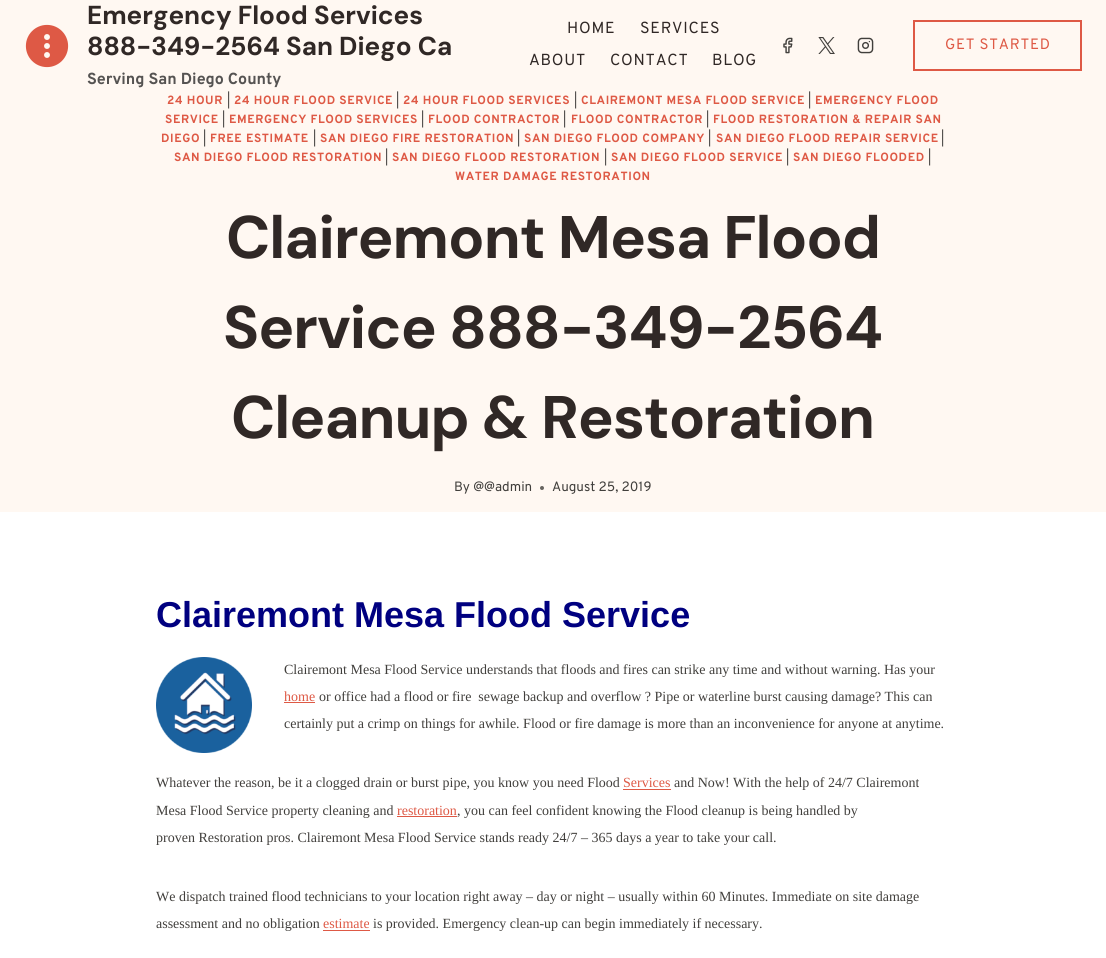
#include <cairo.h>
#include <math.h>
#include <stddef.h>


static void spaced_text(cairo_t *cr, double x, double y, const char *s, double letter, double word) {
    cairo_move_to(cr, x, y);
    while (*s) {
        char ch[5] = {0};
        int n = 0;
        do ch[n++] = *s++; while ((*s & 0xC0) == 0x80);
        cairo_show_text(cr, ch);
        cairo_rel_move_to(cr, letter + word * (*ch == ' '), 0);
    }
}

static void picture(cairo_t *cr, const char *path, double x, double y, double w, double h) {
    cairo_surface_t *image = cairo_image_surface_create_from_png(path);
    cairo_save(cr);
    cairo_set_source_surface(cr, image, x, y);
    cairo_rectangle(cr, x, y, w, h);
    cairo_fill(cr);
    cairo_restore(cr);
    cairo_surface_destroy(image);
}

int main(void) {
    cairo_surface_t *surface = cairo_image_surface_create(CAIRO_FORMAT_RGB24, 1106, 958);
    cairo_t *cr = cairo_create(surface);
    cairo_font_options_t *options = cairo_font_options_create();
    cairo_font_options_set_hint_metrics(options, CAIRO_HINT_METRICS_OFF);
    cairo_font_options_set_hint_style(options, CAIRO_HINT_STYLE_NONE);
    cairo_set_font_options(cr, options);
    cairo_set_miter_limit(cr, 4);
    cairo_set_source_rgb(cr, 1, 1, 1);
    cairo_paint(cr);
    cairo_set_source_rgb(cr, 1, 0.969, 0.949);
    cairo_rectangle(cr, 0, 0, 1106, 512);
    cairo_fill(cr);
    picture(cr, "img1.png", 25, 24, 44, 44);
    cairo_select_font_face(cr, "DM Sans", CAIRO_FONT_SLANT_NORMAL, CAIRO_FONT_WEIGHT_BOLD);
    cairo_set_font_size(cr, 26);
    cairo_set_source_rgb(cr, 0.188, 0.157, 0.149);
    cairo_move_to(cr, 87, 24);
    cairo_show_text(cr, "Emergency Flood Services");
    cairo_move_to(cr, 87, 55);
    cairo_show_text(cr, "888-349-2564 San Diego Ca");
    cairo_select_font_face(cr, "Overpass", CAIRO_FONT_SLANT_NORMAL, CAIRO_FONT_WEIGHT_BOLD);
    cairo_set_font_size(cr, 16);
    cairo_set_source_rgb(cr, 0.333, 0.325, 0.322);
    cairo_move_to(cr, 87, 84);
    cairo_show_text(cr, "Serving San Diego County");
    cairo_select_font_face(cr, "Overpass", CAIRO_FONT_SLANT_NORMAL, CAIRO_FONT_WEIGHT_NORMAL);
    cairo_set_source_rgb(cr, 0.188, 0.157, 0.149);
    spaced_text(cr, 567, 33, "HOME", 0.75, 0);
    spaced_text(cr, 640, 33, "SERVICES", 0.75, 0);
    spaced_text(cr, 529, 65, "ABOUT", 0.75, 0);
    spaced_text(cr, 610, 65, "CONTACT", 0.75, 0);
    spaced_text(cr, 712, 65, "BLOG", 0.75, 0);
    picture(cr, "img2.png", 783, 37, 10, 17);
    picture(cr, "img3.png", 818, 37, 17, 17);
    picture(cr, "img4.png", 857, 37, 17, 17);
    cairo_rectangle(cr, 914, 21, 167, 49);
    cairo_set_source_rgb(cr, 0.871, 0.349, 0.271);
    cairo_stroke(cr);
    cairo_set_font_size(cr, 15);
    spaced_text(cr, 945, 49, "GET STARTED", 0.75, 0);
    cairo_select_font_face(cr, "Overpass", CAIRO_FONT_SLANT_NORMAL, CAIRO_FONT_WEIGHT_BOLD);
    cairo_set_font_size(cr, 11.9);
    spaced_text(cr, 167, 104, "24 HOUR", 0.6, 0);
    cairo_select_font_face(cr, "Overpass", CAIRO_FONT_SLANT_NORMAL, CAIRO_FONT_WEIGHT_NORMAL);
    cairo_set_source_rgb(cr, 0.255, 0.247, 0.235);
    spaced_text(cr, 227, 104, "|", 0.6, 0);
    cairo_select_font_face(cr, "Overpass", CAIRO_FONT_SLANT_NORMAL, CAIRO_FONT_WEIGHT_BOLD);
    cairo_set_source_rgb(cr, 0.871, 0.349, 0.271);
    spaced_text(cr, 234, 104, "24 HOUR FLOOD SERVICE", 0.6, 0);
    cairo_select_font_face(cr, "Overpass", CAIRO_FONT_SLANT_NORMAL, CAIRO_FONT_WEIGHT_NORMAL);
    cairo_set_source_rgb(cr, 0.255, 0.247, 0.235);
    spaced_text(cr, 396, 104, "|", 0.6, 0);
    cairo_select_font_face(cr, "Overpass", CAIRO_FONT_SLANT_NORMAL, CAIRO_FONT_WEIGHT_BOLD);
    cairo_set_source_rgb(cr, 0.871, 0.349, 0.271);
    spaced_text(cr, 403, 104, "24 HOUR FLOOD SERVICES", 0.6, 0);
    cairo_select_font_face(cr, "Overpass", CAIRO_FONT_SLANT_NORMAL, CAIRO_FONT_WEIGHT_NORMAL);
    cairo_set_source_rgb(cr, 0.255, 0.247, 0.235);
    spaced_text(cr, 574, 104, "|", 0.6, 0);
    cairo_select_font_face(cr, "Overpass", CAIRO_FONT_SLANT_NORMAL, CAIRO_FONT_WEIGHT_BOLD);
    cairo_set_source_rgb(cr, 0.871, 0.349, 0.271);
    spaced_text(cr, 581, 104, "CLAIREMONT MESA FLOOD SERVICE", 0.6, 0);
    cairo_select_font_face(cr, "Overpass", CAIRO_FONT_SLANT_NORMAL, CAIRO_FONT_WEIGHT_NORMAL);
    cairo_set_source_rgb(cr, 0.255, 0.247, 0.235);
    spaced_text(cr, 808, 104, "|", 0.6, 0);
    cairo_select_font_face(cr, "Overpass", CAIRO_FONT_SLANT_NORMAL, CAIRO_FONT_WEIGHT_BOLD);
    cairo_set_source_rgb(cr, 0.871, 0.349, 0.271);
    spaced_text(cr, 815, 104, "EMERGENCY FLOOD", 0.6, 0);
    spaced_text(cr, 165, 123, "SERVICE", 0.6, 0);
    cairo_select_font_face(cr, "Overpass", CAIRO_FONT_SLANT_NORMAL, CAIRO_FONT_WEIGHT_NORMAL);
    cairo_set_source_rgb(cr, 0.255, 0.247, 0.235);
    spaced_text(cr, 222, 123, "|", 0.6, 0);
    cairo_select_font_face(cr, "Overpass", CAIRO_FONT_SLANT_NORMAL, CAIRO_FONT_WEIGHT_BOLD);
    cairo_set_source_rgb(cr, 0.871, 0.349, 0.271);
    spaced_text(cr, 229, 123, "EMERGENCY FLOOD SERVICES", 0.6, 0);
    cairo_select_font_face(cr, "Overpass", CAIRO_FONT_SLANT_NORMAL, CAIRO_FONT_WEIGHT_NORMAL);
    cairo_set_source_rgb(cr, 0.255, 0.247, 0.235);
    spaced_text(cr, 421, 123, "|", 0.6, 0);
    cairo_select_font_face(cr, "Overpass", CAIRO_FONT_SLANT_NORMAL, CAIRO_FONT_WEIGHT_BOLD);
    cairo_set_source_rgb(cr, 0.871, 0.349, 0.271);
    spaced_text(cr, 428, 123, "FLOOD CONTRACTOR", 0.6, 0);
    cairo_select_font_face(cr, "Overpass", CAIRO_FONT_SLANT_NORMAL, CAIRO_FONT_WEIGHT_NORMAL);
    cairo_set_source_rgb(cr, 0.255, 0.247, 0.235);
    spaced_text(cr, 563, 123, "|", 0.6, 0);
    cairo_select_font_face(cr, "Overpass", CAIRO_FONT_SLANT_NORMAL, CAIRO_FONT_WEIGHT_BOLD);
    cairo_set_source_rgb(cr, 0.871, 0.349, 0.271);
    spaced_text(cr, 571, 123, "FLOOD CONTRACTOR", 0.6, 0);
    cairo_select_font_face(cr, "Overpass", CAIRO_FONT_SLANT_NORMAL, CAIRO_FONT_WEIGHT_NORMAL);
    cairo_set_source_rgb(cr, 0.255, 0.247, 0.235);
    spaced_text(cr, 706, 123, "|", 0.6, 0);
    cairo_select_font_face(cr, "Overpass", CAIRO_FONT_SLANT_NORMAL, CAIRO_FONT_WEIGHT_BOLD);
    cairo_set_source_rgb(cr, 0.871, 0.349, 0.271);
    spaced_text(cr, 713, 123, "FLOOD RESTORATION & REPAIR SAN", 0.6, 0);
    spaced_text(cr, 161, 142, "DIEGO", 0.6, 0);
    cairo_select_font_face(cr, "Overpass", CAIRO_FONT_SLANT_NORMAL, CAIRO_FONT_WEIGHT_NORMAL);
    cairo_set_source_rgb(cr, 0.255, 0.247, 0.235);
    spaced_text(cr, 203, 142, "|", 0.6, 0);
    cairo_select_font_face(cr, "Overpass", CAIRO_FONT_SLANT_NORMAL, CAIRO_FONT_WEIGHT_BOLD);
    cairo_set_source_rgb(cr, 0.871, 0.349, 0.271);
    spaced_text(cr, 210, 142, "FREE ESTIMATE", 0.6, 0);
    cairo_select_font_face(cr, "Overpass", CAIRO_FONT_SLANT_NORMAL, CAIRO_FONT_WEIGHT_NORMAL);
    cairo_set_source_rgb(cr, 0.255, 0.247, 0.235);
    spaced_text(cr, 313, 142, "|", 0.6, 0);
    cairo_select_font_face(cr, "Overpass", CAIRO_FONT_SLANT_NORMAL, CAIRO_FONT_WEIGHT_BOLD);
    cairo_set_source_rgb(cr, 0.871, 0.349, 0.271);
    spaced_text(cr, 320, 142, "SAN DIEGO FIRE RESTORATION", 0.6, 0);
    cairo_select_font_face(cr, "Overpass", CAIRO_FONT_SLANT_NORMAL, CAIRO_FONT_WEIGHT_NORMAL);
    cairo_set_source_rgb(cr, 0.255, 0.247, 0.235);
    spaced_text(cr, 517, 142, "|", 0.6, 0);
    cairo_select_font_face(cr, "Overpass", CAIRO_FONT_SLANT_NORMAL, CAIRO_FONT_WEIGHT_BOLD);
    cairo_set_source_rgb(cr, 0.871, 0.349, 0.271);
    spaced_text(cr, 524, 142, "SAN DIEGO FLOOD COMPANY", 0.6, 0);
    cairo_select_font_face(cr, "Overpass", CAIRO_FONT_SLANT_NORMAL, CAIRO_FONT_WEIGHT_NORMAL);
    cairo_set_source_rgb(cr, 0.255, 0.247, 0.235);
    spaced_text(cr, 708, 142, "|", 0.6, 0);
    cairo_select_font_face(cr, "Overpass", CAIRO_FONT_SLANT_NORMAL, CAIRO_FONT_WEIGHT_BOLD);
    cairo_set_source_rgb(cr, 0.871, 0.349, 0.271);
    spaced_text(cr, 716, 142, "SAN DIEGO FLOOD REPAIR SERVICE", 0.6, 0);
    cairo_select_font_face(cr, "Overpass", CAIRO_FONT_SLANT_NORMAL, CAIRO_FONT_WEIGHT_NORMAL);
    cairo_set_source_rgb(cr, 0.255, 0.247, 0.235);
    spaced_text(cr, 941, 142, "|", 0.6, 0);
    cairo_select_font_face(cr, "Overpass", CAIRO_FONT_SLANT_NORMAL, CAIRO_FONT_WEIGHT_BOLD);
    cairo_set_source_rgb(cr, 0.871, 0.349, 0.271);
    spaced_text(cr, 174, 161, "SAN DIEGO FLOOD RESTORATION", 0.6, 0);
    cairo_select_font_face(cr, "Overpass", CAIRO_FONT_SLANT_NORMAL, CAIRO_FONT_WEIGHT_NORMAL);
    cairo_set_source_rgb(cr, 0.255, 0.247, 0.235);
    spaced_text(cr, 385, 161, "|", 0.6, 0);
    cairo_select_font_face(cr, "Overpass", CAIRO_FONT_SLANT_NORMAL, CAIRO_FONT_WEIGHT_BOLD);
    cairo_set_source_rgb(cr, 0.871, 0.349, 0.271);
    spaced_text(cr, 392, 161, "SAN DIEGO FLOOD RESTORATION", 0.6, 0);
    cairo_select_font_face(cr, "Overpass", CAIRO_FONT_SLANT_NORMAL, CAIRO_FONT_WEIGHT_NORMAL);
    cairo_set_source_rgb(cr, 0.255, 0.247, 0.235);
    spaced_text(cr, 604, 161, "|", 0.6, 0);
    cairo_select_font_face(cr, "Overpass", CAIRO_FONT_SLANT_NORMAL, CAIRO_FONT_WEIGHT_BOLD);
    cairo_set_source_rgb(cr, 0.871, 0.349, 0.271);
    spaced_text(cr, 611, 161, "SAN DIEGO FLOOD SERVICE", 0.6, 0);
    cairo_select_font_face(cr, "Overpass", CAIRO_FONT_SLANT_NORMAL, CAIRO_FONT_WEIGHT_NORMAL);
    cairo_set_source_rgb(cr, 0.255, 0.247, 0.235);
    spaced_text(cr, 786, 161, "|", 0.6, 0);
    cairo_select_font_face(cr, "Overpass", CAIRO_FONT_SLANT_NORMAL, CAIRO_FONT_WEIGHT_BOLD);
    cairo_set_source_rgb(cr, 0.871, 0.349, 0.271);
    spaced_text(cr, 793, 161, "SAN DIEGO FLOODED", 0.6, 0);
    cairo_select_font_face(cr, "Overpass", CAIRO_FONT_SLANT_NORMAL, CAIRO_FONT_WEIGHT_NORMAL);
    cairo_set_source_rgb(cr, 0.255, 0.247, 0.235);
    spaced_text(cr, 928, 161, "|", 0.6, 0);
    cairo_select_font_face(cr, "Overpass", CAIRO_FONT_SLANT_NORMAL, CAIRO_FONT_WEIGHT_BOLD);
    cairo_set_source_rgb(cr, 0.871, 0.349, 0.271);
    spaced_text(cr, 455, 180, "WATER DAMAGE RESTORATION", 0.6, 0);
    cairo_select_font_face(cr, "DM Sans", CAIRO_FONT_SLANT_NORMAL, CAIRO_FONT_WEIGHT_BOLD);
    cairo_set_font_size(cr, 60);
    cairo_set_source_rgb(cr, 0.188, 0.157, 0.149);
    spaced_text(cr, 226, 258, "Clairemont Mesa Flood", -1, 0);
    spaced_text(cr, 223, 348, "Service 888-349-2564", -1, 0);
    spaced_text(cr, 231, 438, "Cleanup & Restoration", -1, 0);
    cairo_select_font_face(cr, "Overpass", CAIRO_FONT_SLANT_NORMAL, CAIRO_FONT_WEIGHT_NORMAL);
    cairo_set_font_size(cr, 13.5);
    cairo_set_source_rgb(cr, 0.255, 0.247, 0.235);
    cairo_move_to(cr, 454, 491);
    cairo_show_text(cr, "By @@admin");
    cairo_set_source_rgb(cr, 0.404, 0.392, 0.376);
    cairo_new_path(cr);
    cairo_arc(cr, 542, 488, 2, 0, 2 * M_PI);
    cairo_fill(cr);
    cairo_set_source_rgb(cr, 0.255, 0.247, 0.235);
    cairo_move_to(cr, 552, 491);
    cairo_show_text(cr, "August 25, 2019");
    cairo_select_font_face(cr, "Liberation Sans", CAIRO_FONT_SLANT_NORMAL, CAIRO_FONT_WEIGHT_BOLD);
    cairo_set_font_size(cr, 36);
    cairo_set_source_rgb(cr, 0, 0, 0.502);
    cairo_move_to(cr, 156, 627);
    cairo_show_text(cr, "Clairemont Mesa Flood Service");
    picture(cr, "img5.png", 156, 657, 96, 96);
    cairo_select_font_face(cr, "Liberation Serif", CAIRO_FONT_SLANT_NORMAL, CAIRO_FONT_WEIGHT_NORMAL);
    cairo_set_font_size(cr, 14);
    cairo_set_source_rgb(cr, 0.255, 0.247, 0.235);
    cairo_move_to(cr, 284, 674);
    cairo_show_text(cr, "Clairemont Mesa Flood Service understands that floods and fires can strike any time and without warning. Has your");
    cairo_set_source_rgb(cr, 0.871, 0.349, 0.271);
    cairo_move_to(cr, 284, 701);
    cairo_show_text(cr, "home");
    cairo_rectangle(cr, 284, 702, 31, 1);
    cairo_fill(cr);
    cairo_set_source_rgb(cr, 0.255, 0.247, 0.235);
    cairo_move_to(cr, 319, 701);
    cairo_show_text(cr, "or office had a flood or fire  sewage backup and overflow ? Pipe or waterline burst causing damage? This can");
    cairo_move_to(cr, 284, 728);
    cairo_show_text(cr, "certainly put a crimp on things for awhile. Flood or fire damage is more than an inconvenience for anyone at anytime.");
    cairo_move_to(cr, 156, 787);
    cairo_show_text(cr, "Whatever the reason, be it a clogged drain or burst pipe, you know you need Flood");
    cairo_set_source_rgb(cr, 0.871, 0.349, 0.271);
    cairo_move_to(cr, 623, 787);
    cairo_show_text(cr, "Services");
    cairo_rectangle(cr, 623, 789, 48, 1);
    cairo_fill(cr);
    cairo_set_source_rgb(cr, 0.255, 0.247, 0.235);
    cairo_move_to(cr, 674, 787);
    cairo_show_text(cr, "and Now! With the help of 24/7 Clairemont");
    cairo_move_to(cr, 156, 815);
    cairo_show_text(cr, "Mesa Flood Service property cleaning and");
    cairo_set_source_rgb(cr, 0.871, 0.349, 0.271);
    cairo_move_to(cr, 397, 815);
    cairo_show_text(cr, "restoration");
    cairo_set_source_rgb(cr, 0.255, 0.247, 0.235);
    cairo_move_to(cr, 457, 815);
    cairo_show_text(cr, ", you can feel confident knowing the Flood cleanup is being handled by");
    cairo_set_source_rgb(cr, 0.871, 0.349, 0.271);
    cairo_rectangle(cr, 397, 816, 60, 1);
    cairo_fill(cr);
    cairo_set_source_rgb(cr, 0.255, 0.247, 0.235);
    cairo_move_to(cr, 156, 842);
    cairo_show_text(cr, "proven Restoration pros. Clairemont Mesa Flood Service stands ready 24/7 – 365 days a year to take your call.");
    cairo_move_to(cr, 156, 901);
    cairo_show_text(cr, "We dispatch trained flood technicians to your location right away – day or night – usually within 60 Minutes. Immediate on site damage");
    cairo_move_to(cr, 156, 928);
    cairo_show_text(cr, "assessment and no obligation");
    cairo_set_source_rgb(cr, 0.871, 0.349, 0.271);
    cairo_move_to(cr, 323, 928);
    cairo_show_text(cr, "estimate");
    cairo_rectangle(cr, 323, 930, 47, 1);
    cairo_fill(cr);
    cairo_set_source_rgb(cr, 0.255, 0.247, 0.235);
    cairo_move_to(cr, 373, 928);
    cairo_show_text(cr, "is provided. Emergency clean-up can begin immediately if necessary.");
    cairo_surface_write_to_png(surface, "page.png");
    cairo_font_options_destroy(options);
    cairo_destroy(cr);
    cairo_surface_destroy(surface);
    return 0;
}
